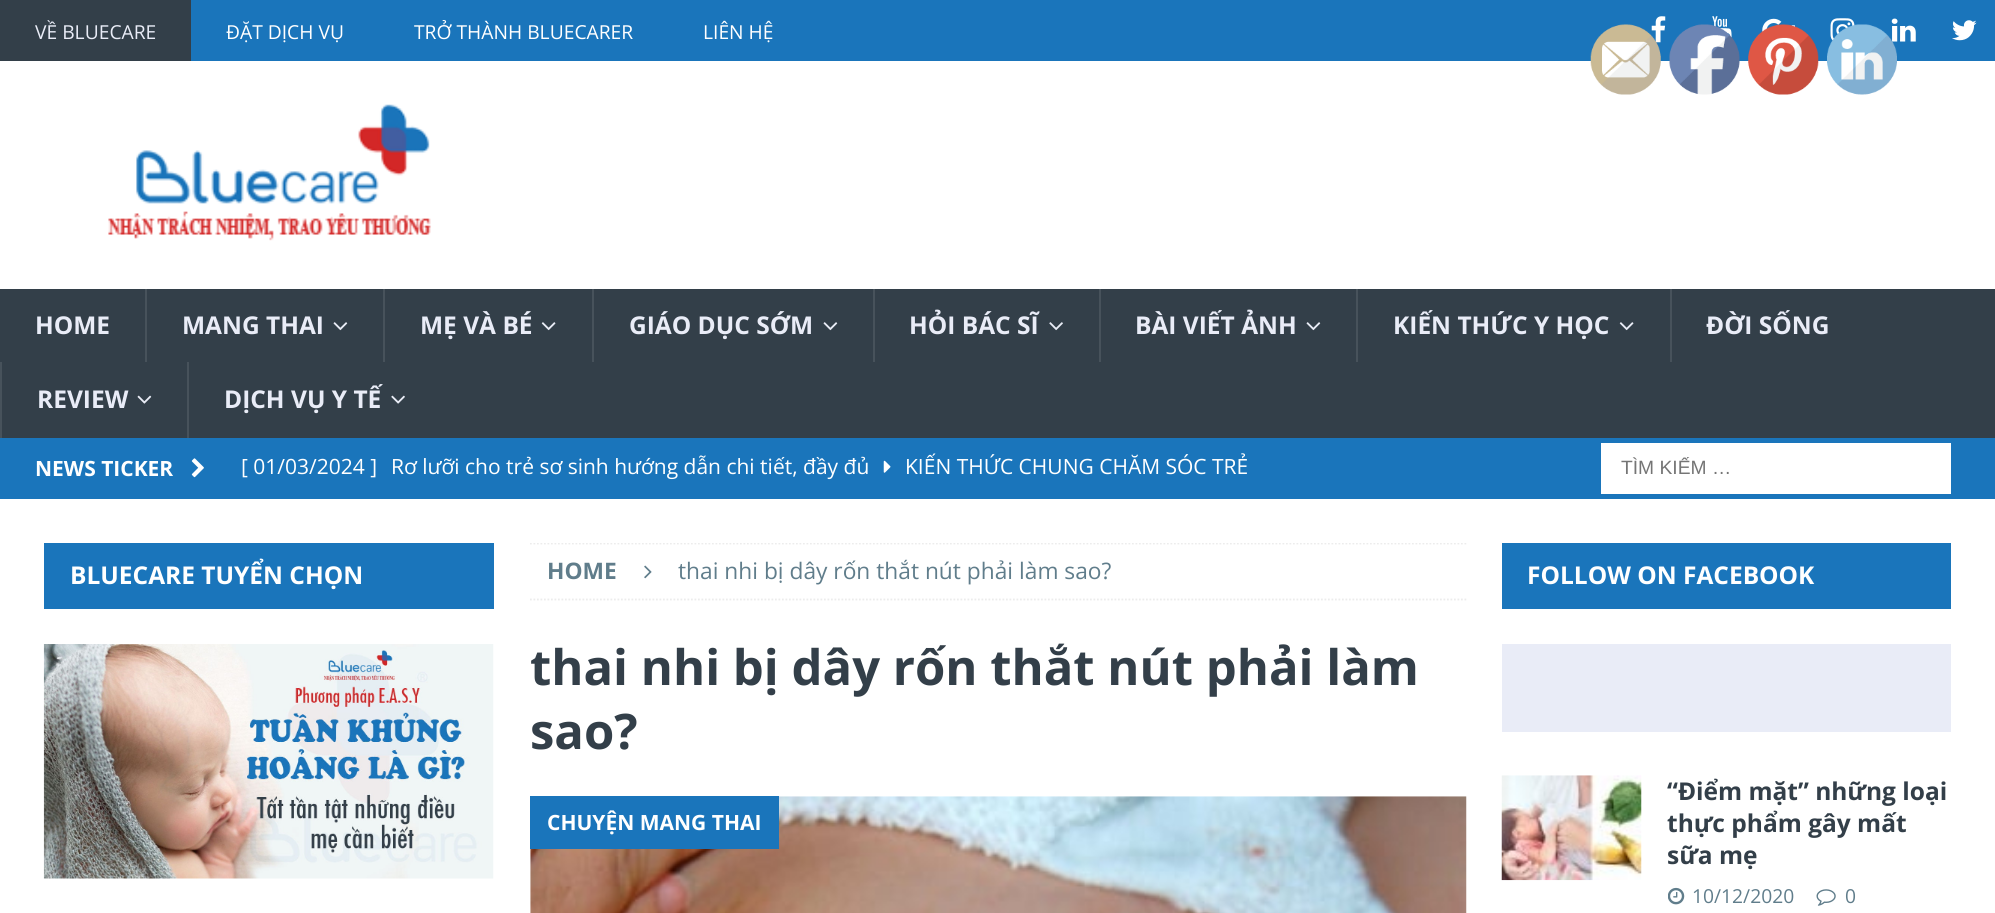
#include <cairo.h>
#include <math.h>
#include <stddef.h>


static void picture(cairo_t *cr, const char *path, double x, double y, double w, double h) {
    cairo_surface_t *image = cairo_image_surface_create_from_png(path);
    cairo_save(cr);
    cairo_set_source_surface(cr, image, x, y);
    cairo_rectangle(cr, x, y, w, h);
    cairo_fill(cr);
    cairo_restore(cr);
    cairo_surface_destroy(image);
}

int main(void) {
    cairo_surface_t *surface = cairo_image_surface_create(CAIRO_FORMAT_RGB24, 1995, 913);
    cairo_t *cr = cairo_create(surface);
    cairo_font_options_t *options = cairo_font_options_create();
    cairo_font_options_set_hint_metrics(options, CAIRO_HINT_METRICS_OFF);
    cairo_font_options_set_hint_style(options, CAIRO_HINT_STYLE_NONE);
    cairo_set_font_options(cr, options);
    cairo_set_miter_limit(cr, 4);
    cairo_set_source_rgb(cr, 0.102, 0.459, 0.733);
    cairo_paint(cr);
    cairo_set_source_rgb(cr, 0.2, 0.247, 0.286);
    cairo_rectangle(cr, 0, 0, 191, 61);
    cairo_fill(cr);
    cairo_select_font_face(cr, "Open Sans", CAIRO_FONT_SLANT_NORMAL, CAIRO_FONT_WEIGHT_NORMAL);
    cairo_set_font_size(cr, 19.25);
    cairo_set_source_rgb(cr, 0.914, 0.925, 0.965);
    cairo_move_to(cr, 35, 39);
    cairo_show_text(cr, "VỀ BLUECARE");
    cairo_set_source_rgb(cr, 1, 1, 1);
    cairo_move_to(cr, 226, 39);
    cairo_show_text(cr, "ĐẶT DỊCH VỤ");
    cairo_move_to(cr, 414, 39);
    cairo_show_text(cr, "TRỞ THÀNH BLUECARER");
    cairo_move_to(cr, 703, 39);
    cairo_show_text(cr, "LIÊN HỆ");
    picture(cr, "img1.png", 1651, 16, 15, 27);
    picture(cr, "img2.png", 1712, 16, 20, 23);
    picture(cr, "img3.png", 1762, 18, 37, 15);
    picture(cr, "img4.png", 1830, 18, 25, 23);
    picture(cr, "img5.png", 1891, 18, 25, 24);
    picture(cr, "img6.png", 1952, 20, 25, 21);
    cairo_rectangle(cr, 0, 61, 1995, 228);
    cairo_fill(cr);
    picture(cr, "img7.png", 1590, 24, 71, 71);
    picture(cr, "img8.png", 1669, 24, 71, 71);
    picture(cr, "img9.png", 1748, 24, 71, 71);
    picture(cr, "img10.png", 1827, 24, 70, 71);
    picture(cr, "img11.png", 108, 104, 323, 137);
    cairo_set_source_rgb(cr, 0.2, 0.247, 0.286);
    cairo_rectangle(cr, 0, 289, 1995, 149);
    cairo_fill(cr);
    cairo_select_font_face(cr, "Open Sans", CAIRO_FONT_SLANT_NORMAL, CAIRO_FONT_WEIGHT_BOLD);
    cairo_set_font_size(cr, 24.5);
    cairo_set_source_rgb(cr, 0.914, 0.925, 0.965);
    cairo_move_to(cr, 35, 334);
    cairo_show_text(cr, "HOME");
    cairo_set_source_rgb(cr, 0.278, 0.322, 0.357);
    cairo_rectangle(cr, 145, 289, 2, 73);
    cairo_fill(cr);
    cairo_set_source_rgb(cr, 0.914, 0.925, 0.965);
    cairo_move_to(cr, 182, 334);
    cairo_show_text(cr, "MANG THAI");
    picture(cr, "img12.png", 333, 322, 15, 9);
    cairo_set_source_rgb(cr, 0.278, 0.322, 0.357);
    cairo_rectangle(cr, 383, 289, 2, 73);
    cairo_fill(cr);
    cairo_set_source_rgb(cr, 0.914, 0.925, 0.965);
    cairo_move_to(cr, 420, 334);
    cairo_show_text(cr, "MẸ VÀ BÉ");
    picture(cr, "img13.png", 541, 322, 15, 9);
    cairo_set_source_rgb(cr, 0.278, 0.322, 0.357);
    cairo_rectangle(cr, 592, 289, 2, 73);
    cairo_fill(cr);
    cairo_set_source_rgb(cr, 0.914, 0.925, 0.965);
    cairo_move_to(cr, 629, 334);
    cairo_show_text(cr, "GIÁO DỤC SỚM");
    picture(cr, "img12.png", 823, 322, 15, 9);
    cairo_set_source_rgb(cr, 0.278, 0.322, 0.357);
    cairo_rectangle(cr, 873, 289, 2, 73);
    cairo_fill(cr);
    cairo_set_source_rgb(cr, 0.914, 0.925, 0.965);
    cairo_move_to(cr, 909, 334);
    cairo_show_text(cr, "HỎI BÁC SĨ");
    picture(cr, "img14.png", 1049, 322, 14, 9);
    cairo_set_source_rgb(cr, 0.278, 0.322, 0.357);
    cairo_rectangle(cr, 1099, 289, 2, 73);
    cairo_fill(cr);
    cairo_set_source_rgb(cr, 0.914, 0.925, 0.965);
    cairo_move_to(cr, 1135, 334);
    cairo_show_text(cr, "BÀI VIẾT ẢNH");
    picture(cr, "img12.png", 1306, 322, 15, 9);
    cairo_set_source_rgb(cr, 0.278, 0.322, 0.357);
    cairo_rectangle(cr, 1356, 289, 2, 73);
    cairo_fill(cr);
    cairo_set_source_rgb(cr, 0.914, 0.925, 0.965);
    cairo_move_to(cr, 1393, 334);
    cairo_show_text(cr, "KIẾN THỨC Y HỌC");
    picture(cr, "img13.png", 1619, 322, 15, 9);
    cairo_set_source_rgb(cr, 0.278, 0.322, 0.357);
    cairo_rectangle(cr, 1670, 289, 2, 73);
    cairo_fill(cr);
    cairo_set_source_rgb(cr, 0.914, 0.925, 0.965);
    cairo_move_to(cr, 1706, 334);
    cairo_show_text(cr, "ĐỜI SỐNG");
    cairo_set_source_rgb(cr, 0.278, 0.322, 0.357);
    cairo_rectangle(cr, 0, 362, 2, 76);
    cairo_fill(cr);
    cairo_set_source_rgb(cr, 0.914, 0.925, 0.965);
    cairo_move_to(cr, 37, 408);
    cairo_show_text(cr, "REVIEW");
    picture(cr, "img15.png", 137, 395, 15, 9);
    cairo_set_source_rgb(cr, 0.278, 0.322, 0.357);
    cairo_rectangle(cr, 187, 362, 2, 76);
    cairo_fill(cr);
    cairo_set_source_rgb(cr, 0.914, 0.925, 0.965);
    cairo_move_to(cr, 224, 408);
    cairo_show_text(cr, "DỊCH VỤ Y TẾ");
    picture(cr, "img16.png", 391, 395, 14, 9);
    cairo_set_font_size(cr, 21);
    cairo_set_source_rgb(cr, 1, 1, 1);
    cairo_move_to(cr, 35, 476);
    cairo_show_text(cr, "NEWS TICKER");
    picture(cr, "img17.png", 191, 458, 13, 20);
    cairo_select_font_face(cr, "Open Sans", CAIRO_FONT_SLANT_NORMAL, CAIRO_FONT_WEIGHT_NORMAL);
    cairo_move_to(cr, 241, 474);
    cairo_show_text(cr, "[ 01/03/2024 ]");
    cairo_move_to(cr, 391, 474);
    cairo_show_text(cr, "Rơ lưỡi cho trẻ sơ sinh hướng dẫn chi tiết, đầy đủ");
    picture(cr, "img18.png", 883, 460, 8, 13);
    cairo_move_to(cr, 905, 474);
    cairo_show_text(cr, "KIẾN THỨC CHUNG CHĂM SÓC TRẺ");
    cairo_rectangle(cr, 1601, 443, 350, 51);
    cairo_fill(cr);
    cairo_save(cr);
    cairo_rectangle(cr, 1621, 457, 290, 21);
    cairo_clip(cr);
    cairo_select_font_face(cr, "Liberation Sans", CAIRO_FONT_SLANT_NORMAL, CAIRO_FONT_WEIGHT_NORMAL);
    cairo_set_font_size(cr, 19.25);
    cairo_set_source_rgb(cr, 0.459, 0.459, 0.459);
    cairo_move_to(cr, 1621, 474);
    cairo_show_text(cr, "TÌM KIẾM …");
    cairo_restore(cr);
    cairo_rectangle(cr, 0, 499, 1995, 414);
    cairo_fill(cr);
    cairo_set_source_rgb(cr, 0.102, 0.459, 0.733);
    cairo_rectangle(cr, 44, 543, 450, 66);
    cairo_fill(cr);
    cairo_select_font_face(cr, "Open Sans", CAIRO_FONT_SLANT_NORMAL, CAIRO_FONT_WEIGHT_BOLD);
    cairo_set_font_size(cr, 24.5);
    cairo_set_source_rgb(cr, 1, 1, 1);
    cairo_move_to(cr, 70, 584);
    cairo_show_text(cr, "BLUECARE TUYỂN CHỌN");
    picture(cr, "img19.png", 43, 644, 451, 235);
    cairo_save(cr);
    cairo_rectangle(cr, 530, 543, 937, 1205);
    cairo_clip(cr);
    cairo_new_path(cr);
    cairo_move_to(cr, 530, 543.5);
    cairo_line_to(cr, 1466.5, 543.5);
    cairo_set_source_rgb(cr, 0.922, 0.922, 0.922);
    cairo_set_line_width(cr, 1.8);
    cairo_set_dash(cr, (double[]){1.75, 1.75}, 2, 0);
    cairo_stroke(cr);
    cairo_restore(cr);
    cairo_new_path(cr);
    cairo_move_to(cr, 530, 599.5);
    cairo_line_to(cr, 1466.5, 599.5);
    cairo_set_source_rgb(cr, 0.922, 0.922, 0.922);
    cairo_set_line_width(cr, 1.8);
    cairo_set_dash(cr, (double[]){1.75, 1.75}, 2, 0);
    cairo_stroke(cr);
    cairo_set_font_size(cr, 22.75);
    cairo_set_source_rgb(cr, 0.376, 0.49, 0.545);
    cairo_move_to(cr, 547, 579);
    cairo_show_text(cr, "HOME");
    picture(cr, "img20.png", 644, 565, 8, 14);
    cairo_select_font_face(cr, "Open Sans", CAIRO_FONT_SLANT_NORMAL, CAIRO_FONT_WEIGHT_NORMAL);
    cairo_move_to(cr, 678, 579);
    cairo_show_text(cr, "thai nhi bị dây rốn thắt nút phải làm sao?");
    cairo_select_font_face(cr, "Open Sans", CAIRO_FONT_SLANT_NORMAL, CAIRO_FONT_WEIGHT_BOLD);
    cairo_set_font_size(cr, 49);
    cairo_set_source_rgb(cr, 0.2, 0.247, 0.286);
    cairo_move_to(cr, 530, 685);
    cairo_show_text(cr, "thai nhi bị dây rốn thắt nút phải làm");
    cairo_move_to(cr, 530, 749);
    cairo_show_text(cr, "sao?");
    picture(cr, "img21.png", 530, 796, 937, 117);
    cairo_set_source_rgb(cr, 0.102, 0.459, 0.733);
    cairo_rectangle(cr, 530, 796, 249, 53);
    cairo_fill(cr);
    cairo_set_font_size(cr, 21);
    cairo_set_source_rgb(cr, 1, 1, 1);
    cairo_move_to(cr, 547, 830);
    cairo_show_text(cr, "CHUYỆN MANG THAI");
    cairo_set_source_rgb(cr, 0.102, 0.459, 0.733);
    cairo_rectangle(cr, 1502, 543, 449, 66);
    cairo_fill(cr);
    cairo_set_font_size(cr, 24.5);
    cairo_set_source_rgb(cr, 1, 1, 1);
    cairo_move_to(cr, 1527, 584);
    cairo_show_text(cr, "FOLLOW ON FACEBOOK");
    cairo_set_source_rgb(cr, 0.914, 0.925, 0.965);
    cairo_rectangle(cr, 1502, 644, 449, 88);
    cairo_fill(cr);
    picture(cr, "img22.png", 1501, 775, 141, 106);
    cairo_set_source_rgb(cr, 0.2, 0.247, 0.286);
    cairo_move_to(cr, 1667, 800);
    cairo_show_text(cr, "“Điểm mặt” những loại");
    cairo_move_to(cr, 1667, 832);
    cairo_show_text(cr, "thực phẩm gây mất");
    cairo_move_to(cr, 1667, 864);
    cairo_show_text(cr, "sữa mẹ");
    picture(cr, "img23.png", 1668, 887, 17, 18);
    cairo_select_font_face(cr, "Open Sans", CAIRO_FONT_SLANT_NORMAL, CAIRO_FONT_WEIGHT_NORMAL);
    cairo_set_font_size(cr, 19.25);
    cairo_set_source_rgb(cr, 0.376, 0.49, 0.545);
    cairo_move_to(cr, 1692, 903);
    cairo_show_text(cr, "10/12/2020");
    picture(cr, "img24.png", 1816, 889, 20, 17);
    cairo_move_to(cr, 1845, 903);
    cairo_show_text(cr, "0");
    cairo_surface_write_to_png(surface, "page.png");
    cairo_font_options_destroy(options);
    cairo_destroy(cr);
    cairo_surface_destroy(surface);
    return 0;
}
